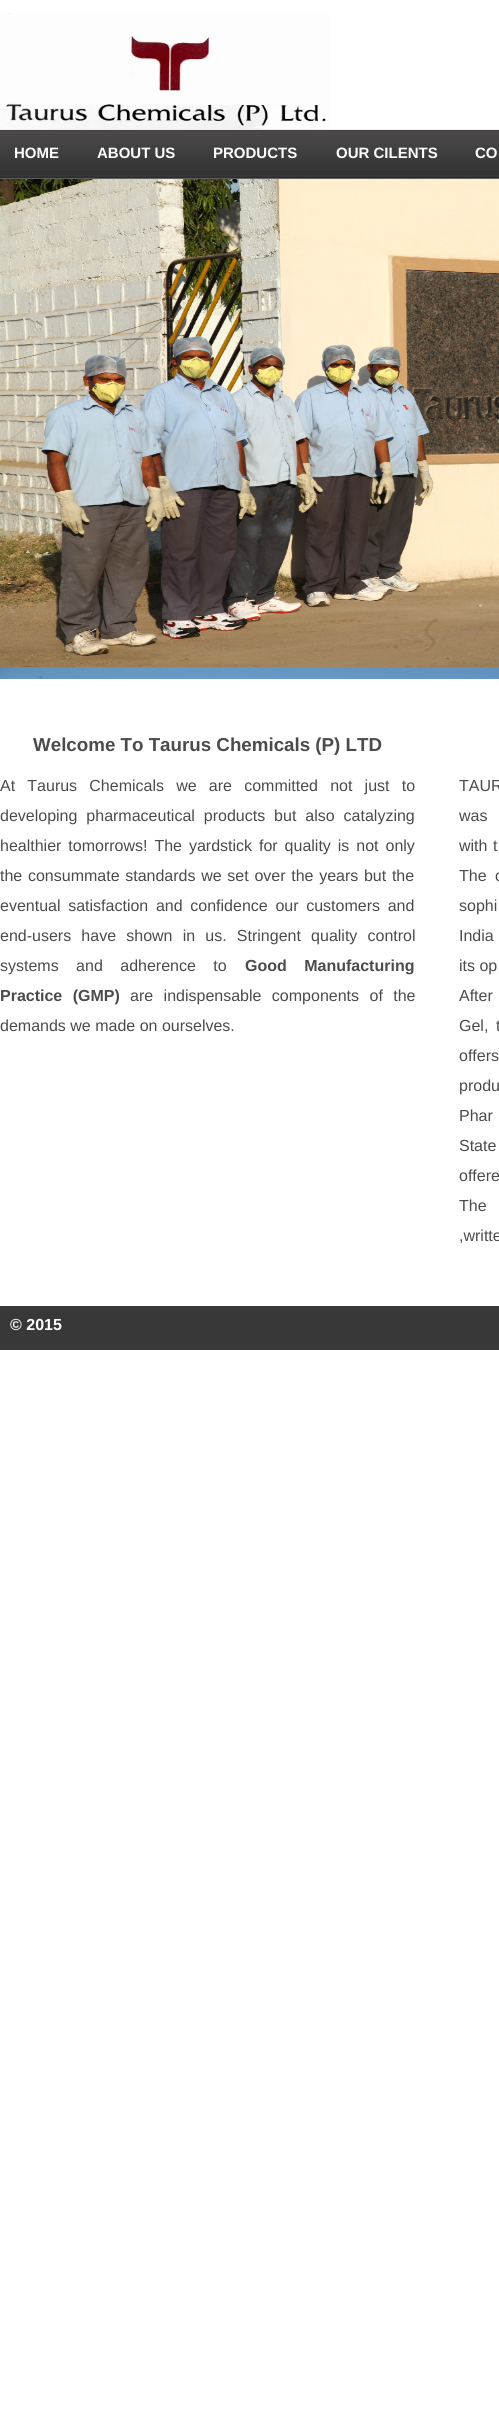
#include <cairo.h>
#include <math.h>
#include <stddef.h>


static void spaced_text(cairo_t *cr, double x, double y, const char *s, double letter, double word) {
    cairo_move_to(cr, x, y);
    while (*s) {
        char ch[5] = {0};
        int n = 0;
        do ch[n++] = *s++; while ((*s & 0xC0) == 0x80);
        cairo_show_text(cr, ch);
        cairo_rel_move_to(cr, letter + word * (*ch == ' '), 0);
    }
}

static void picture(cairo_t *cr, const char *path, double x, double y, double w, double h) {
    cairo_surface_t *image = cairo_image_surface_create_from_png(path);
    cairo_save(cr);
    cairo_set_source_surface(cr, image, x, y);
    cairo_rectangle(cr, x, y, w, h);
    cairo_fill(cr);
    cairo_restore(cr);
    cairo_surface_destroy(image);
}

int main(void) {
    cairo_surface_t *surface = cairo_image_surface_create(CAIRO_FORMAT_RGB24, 499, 2412);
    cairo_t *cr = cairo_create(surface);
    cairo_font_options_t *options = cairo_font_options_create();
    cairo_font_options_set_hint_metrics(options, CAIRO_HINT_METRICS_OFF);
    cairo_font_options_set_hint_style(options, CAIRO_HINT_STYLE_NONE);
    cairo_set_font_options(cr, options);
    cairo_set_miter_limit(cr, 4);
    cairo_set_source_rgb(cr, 1, 1, 1);
    cairo_paint(cr);
    picture(cr, "img1.png", 0, 13, 330, 116);
    picture(cr, "img2.png", 0, 129, 499, 50);
    cairo_select_font_face(cr, "Liberation Sans", CAIRO_FONT_SLANT_NORMAL, CAIRO_FONT_WEIGHT_BOLD);
    cairo_set_font_size(cr, 15);
    cairo_set_source_rgb(cr, 1, 1, 1);
    cairo_move_to(cr, 14, 158);
    cairo_show_text(cr, "HOME");
    cairo_move_to(cr, 97, 158);
    cairo_show_text(cr, "ABOUT US");
    cairo_move_to(cr, 213, 158);
    cairo_show_text(cr, "PRODUCTS");
    cairo_move_to(cr, 336, 158);
    cairo_show_text(cr, "OUR CILENTS");
    cairo_move_to(cr, 475, 158);
    cairo_show_text(cr, "CO");
    picture(cr, "img3.png", 0, 179, 499, 488);
    picture(cr, "img4.png", 0, 667, 499, 12);
    cairo_set_font_size(cr, 18.75);
    cairo_set_source_rgb(cr, 0.298, 0.294, 0.294);
    cairo_move_to(cr, 33, 751);
    cairo_show_text(cr, "Welcome To Taurus Chemicals (P) LTD");
    cairo_select_font_face(cr, "Liberation Sans", CAIRO_FONT_SLANT_NORMAL, CAIRO_FONT_WEIGHT_NORMAL);
    cairo_set_font_size(cr, 16);
    spaced_text(cr, 0, 791, "At Taurus Chemicals we are committed not just to", 0, 7.75);
    spaced_text(cr, 0, 821, "developing pharmaceutical products but also catalyzing", 0, 4.5);
    spaced_text(cr, 0, 851, "healthier tomorrows! The yardstick for quality is not only", 0, 2.5);
    spaced_text(cr, 0, 881, "the consummate standards we set over the years but the", 0, 1.25);
    spaced_text(cr, 0, 911, "eventual satisfaction and confidence our customers and", 0, 3.25);
    spaced_text(cr, 0, 941, "end-users have shown in us. Stringent quality control", 0, 5.75);
    spaced_text(cr, 0, 971, "systems and adherence to", 0, 13);
    cairo_select_font_face(cr, "Liberation Sans", CAIRO_FONT_SLANT_NORMAL, CAIRO_FONT_WEIGHT_BOLD);
    spaced_text(cr, 245, 971, "Good Manufacturing", 0, 13);
    spaced_text(cr, 0, 1001, "Practice (GMP)", 0, 6);
    cairo_select_font_face(cr, "Liberation Sans", CAIRO_FONT_SLANT_NORMAL, CAIRO_FONT_WEIGHT_NORMAL);
    spaced_text(cr, 130, 1001, "are indispensable components of the", 0, 6);
    cairo_move_to(cr, 0, 1031);
    cairo_show_text(cr, "demands we made on ourselves.");
    spaced_text(cr, 459, 791, "TAUR", 0, 4);
    spaced_text(cr, 459, 821, "was", 0, 3);
    spaced_text(cr, 459, 851, "with t", 0, 1);
    spaced_text(cr, 459, 881, "The c", 0, 4);
    spaced_text(cr, 459, 911, "sophi", 0, 1);
    spaced_text(cr, 459, 941, "India", 0, 1);
    cairo_move_to(cr, 459, 971);
    cairo_show_text(cr, "its op");
    spaced_text(cr, 459, 1001, "After", 0, 2);
    spaced_text(cr, 459, 1031, "Gel, t", 0, 3.25);
    spaced_text(cr, 459, 1061, "offers", 0, 6);
    spaced_text(cr, 459, 1091, "produ", 0, 18);
    spaced_text(cr, 459, 1121, "Phar", 0, 7);
    spaced_text(cr, 459, 1151, "State", 0, 7);
    cairo_move_to(cr, 459, 1181);
    cairo_show_text(cr, "offere");
    spaced_text(cr, 459, 1211, "The", 0, 7);
    cairo_move_to(cr, 459, 1241);
    cairo_show_text(cr, ",writte");
    cairo_set_source_rgb(cr, 0.22, 0.22, 0.22);
    cairo_rectangle(cr, 0, 1306, 499, 44);
    cairo_fill(cr);
    cairo_select_font_face(cr, "Liberation Sans", CAIRO_FONT_SLANT_NORMAL, CAIRO_FONT_WEIGHT_BOLD);
    cairo_set_source_rgb(cr, 1, 1, 1);
    cairo_move_to(cr, 10, 1330);
    cairo_show_text(cr, "© 2015");
    cairo_surface_write_to_png(surface, "page.png");
    cairo_font_options_destroy(options);
    cairo_destroy(cr);
    cairo_surface_destroy(surface);
    return 0;
}
